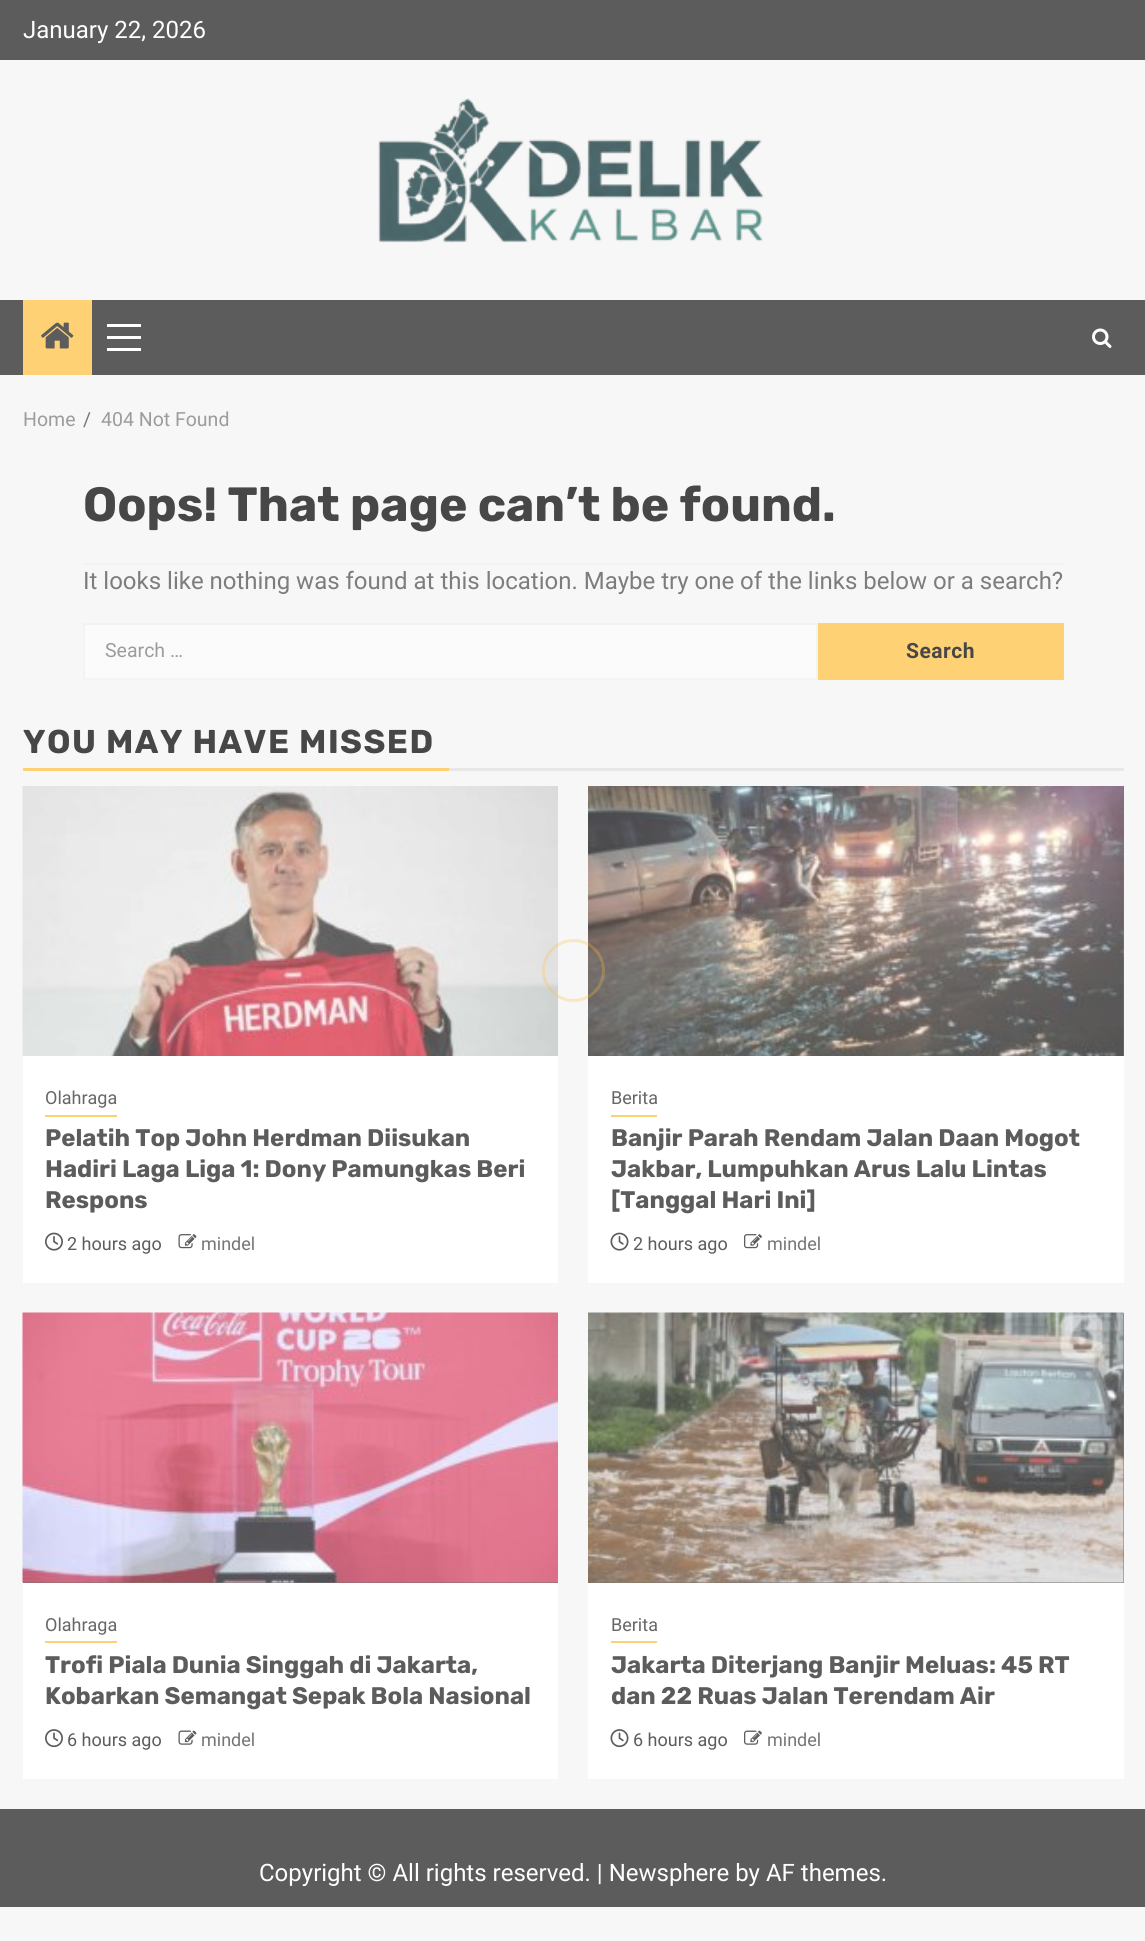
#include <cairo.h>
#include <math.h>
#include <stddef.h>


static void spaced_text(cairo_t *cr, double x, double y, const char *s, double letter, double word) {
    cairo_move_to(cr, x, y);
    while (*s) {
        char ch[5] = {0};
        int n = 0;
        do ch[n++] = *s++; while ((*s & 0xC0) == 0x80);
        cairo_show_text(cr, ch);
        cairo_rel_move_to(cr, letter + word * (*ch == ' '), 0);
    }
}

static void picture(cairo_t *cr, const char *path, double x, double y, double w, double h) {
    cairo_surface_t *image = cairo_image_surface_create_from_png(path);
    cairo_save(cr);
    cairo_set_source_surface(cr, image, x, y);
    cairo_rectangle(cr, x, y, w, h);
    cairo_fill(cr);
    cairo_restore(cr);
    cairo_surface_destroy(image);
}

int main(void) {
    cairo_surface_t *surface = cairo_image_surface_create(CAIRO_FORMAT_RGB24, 1145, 1941);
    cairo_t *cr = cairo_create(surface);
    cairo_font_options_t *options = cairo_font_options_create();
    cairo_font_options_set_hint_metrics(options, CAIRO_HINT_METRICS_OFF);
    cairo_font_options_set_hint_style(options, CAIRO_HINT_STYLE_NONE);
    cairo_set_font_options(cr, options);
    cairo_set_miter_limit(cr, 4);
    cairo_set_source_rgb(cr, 0.965, 0.965, 0.965);
    cairo_paint(cr);
    cairo_set_source_rgb(cr, 0.361, 0.361, 0.361);
    cairo_rectangle(cr, 0, 0, 1145, 60);
    cairo_fill(cr);
    cairo_select_font_face(cr, "Roboto", CAIRO_FONT_SLANT_NORMAL, CAIRO_FONT_WEIGHT_NORMAL);
    cairo_set_font_size(cr, 24);
    cairo_set_source_rgb(cr, 1, 1, 1);
    cairo_move_to(cr, 23, 38);
    cairo_show_text(cr, "January 22, 2026");
    picture(cr, "img1.png", 378, 98, 386, 145);
    cairo_set_source_rgb(cr, 0.361, 0.361, 0.361);
    cairo_rectangle(cr, 0, 300, 1145, 75);
    cairo_fill(cr);
    cairo_set_source_rgb(cr, 1, 0.82, 0.459);
    cairo_rectangle(cr, 23, 300, 69, 75);
    cairo_fill(cr);
    picture(cr, "img2.png", 41, 322, 33, 27);
    cairo_set_source_rgb(cr, 1, 1, 1);
    cairo_rectangle(cr, 107, 336, 34, 3);
    cairo_fill(cr);
    cairo_rectangle(cr, 107, 324, 34, 3);
    cairo_fill(cr);
    cairo_rectangle(cr, 107, 348, 34, 3);
    cairo_fill(cr);
    picture(cr, "img3.png", 1092, 328, 20, 20);
    cairo_set_font_size(cr, 19.5);
    cairo_set_source_rgb(cr, 0.612, 0.612, 0.612);
    cairo_move_to(cr, 23, 426);
    cairo_show_text(cr, "Home");
    cairo_set_source_rgb(cr, 0.459, 0.459, 0.459);
    cairo_move_to(cr, 83, 426);
    cairo_show_text(cr, "/");
    cairo_set_source_rgb(cr, 0.612, 0.612, 0.612);
    cairo_move_to(cr, 101, 426);
    cairo_show_text(cr, "404 Not Found");
    cairo_set_source_rgb(cr, 0.953, 0.953, 0.953);
    cairo_rectangle(cr, 83, 563, 981, 2);
    cairo_fill(cr);
    cairo_select_font_face(cr, "Rubik", CAIRO_FONT_SLANT_NORMAL, CAIRO_FONT_WEIGHT_BOLD);
    cairo_set_font_size(cr, 48);
    cairo_set_source_rgb(cr, 0.278, 0.278, 0.278);
    cairo_move_to(cr, 83, 521);
    cairo_show_text(cr, "Oops! That page can’t be found.");
    cairo_select_font_face(cr, "Roboto", CAIRO_FONT_SLANT_NORMAL, CAIRO_FONT_WEIGHT_NORMAL);
    cairo_set_font_size(cr, 24);
    cairo_set_source_rgb(cr, 0.49, 0.49, 0.49);
    cairo_move_to(cr, 83, 589);
    cairo_show_text(cr, "It looks like nothing was found at this location. Maybe try one of the links below or a search?");
    cairo_set_source_rgb(cr, 0.984, 0.984, 0.984);
    cairo_rectangle(cr, 84, 624, 733, 55);
    cairo_fill_preserve(cr);
    cairo_set_source_rgb(cr, 0.953, 0.953, 0.953);
    cairo_stroke(cr);
    cairo_set_font_size(cr, 19.5);
    cairo_set_source_rgb(cr, 0.612, 0.612, 0.612);
    cairo_move_to(cr, 105, 657);
    cairo_show_text(cr, "Search …");
    cairo_set_source_rgb(cr, 1, 0.82, 0.459);
    cairo_rectangle(cr, 818, 623, 246, 57);
    cairo_fill(cr);
    cairo_select_font_face(cr, "Roboto", CAIRO_FONT_SLANT_NORMAL, CAIRO_FONT_WEIGHT_BOLD);
    cairo_set_font_size(cr, 21);
    cairo_set_source_rgb(cr, 0.278, 0.278, 0.278);
    spaced_text(cr, 906, 658, "Search", 0.5, 0);
    cairo_set_source_rgb(cr, 1, 0.82, 0.459);
    cairo_rectangle(cr, 23, 768, 426, 3);
    cairo_fill(cr);
    cairo_select_font_face(cr, "Rubik", CAIRO_FONT_SLANT_NORMAL, CAIRO_FONT_WEIGHT_BOLD);
    cairo_set_font_size(cr, 33);
    cairo_set_source_rgb(cr, 0.278, 0.278, 0.278);
    spaced_text(cr, 23, 753, "YOU MAY HAVE MISSED", 1.5, 0);
    cairo_set_source_rgb(cr, 0.906, 0.906, 0.906);
    cairo_rectangle(cr, 449, 768, 675, 3);
    cairo_fill(cr);
    cairo_set_source_rgb(cr, 1, 1, 1);
    cairo_rectangle(cr, 23, 1056, 535, 227);
    cairo_fill(cr);
    picture(cr, "img4.png", 22, 786, 536, 270);
    cairo_set_source_rgb(cr, 1, 0.82, 0.459);
    cairo_rectangle(cr, 45, 1115, 72, 2);
    cairo_fill(cr);
    cairo_select_font_face(cr, "Roboto", CAIRO_FONT_SLANT_NORMAL, CAIRO_FONT_WEIGHT_NORMAL);
    cairo_set_font_size(cr, 18);
    cairo_set_source_rgb(cr, 0.4, 0.4, 0.4);
    cairo_move_to(cr, 45, 1104);
    cairo_show_text(cr, "Olahraga");
    cairo_select_font_face(cr, "Rubik", CAIRO_FONT_SLANT_NORMAL, CAIRO_FONT_WEIGHT_BOLD);
    cairo_set_font_size(cr, 24);
    cairo_set_source_rgb(cr, 0.361, 0.361, 0.361);
    cairo_move_to(cr, 45, 1146);
    cairo_show_text(cr, "Pelatih Top John Herdman Diisukan");
    cairo_move_to(cr, 45, 1177);
    cairo_show_text(cr, "Hadiri Laga Liga 1: Dony Pamungkas Beri");
    cairo_move_to(cr, 45, 1208);
    cairo_show_text(cr, "Respons");
    picture(cr, "img5.png", 45, 1232, 18, 19);
    cairo_select_font_face(cr, "Roboto", CAIRO_FONT_SLANT_NORMAL, CAIRO_FONT_WEIGHT_NORMAL);
    cairo_set_font_size(cr, 18);
    cairo_move_to(cr, 67, 1250);
    cairo_show_text(cr, "2 hours ago");
    picture(cr, "img6.png", 178, 1234, 19, 15);
    cairo_set_source_rgb(cr, 0.459, 0.459, 0.459);
    cairo_move_to(cr, 201, 1250);
    cairo_show_text(cr, "mindel");
    cairo_set_source_rgb(cr, 1, 1, 1);
    cairo_rectangle(cr, 588, 1056, 536, 227);
    cairo_fill(cr);
    cairo_set_source_rgb(cr, 0.459, 0.459, 0.459);
    cairo_rectangle(cr, 1123, 786, 1, 270);
    cairo_fill(cr);
    picture(cr, "img7.png", 588, 786, 536, 270);
    cairo_set_source_rgb(cr, 1, 0.82, 0.459);
    cairo_rectangle(cr, 611, 1115, 46, 2);
    cairo_fill(cr);
    cairo_set_source_rgb(cr, 0.4, 0.4, 0.4);
    cairo_move_to(cr, 611, 1104);
    cairo_show_text(cr, "Berita");
    cairo_select_font_face(cr, "Rubik", CAIRO_FONT_SLANT_NORMAL, CAIRO_FONT_WEIGHT_BOLD);
    cairo_set_font_size(cr, 24);
    cairo_set_source_rgb(cr, 0.361, 0.361, 0.361);
    cairo_move_to(cr, 611, 1146);
    cairo_show_text(cr, "Banjir Parah Rendam Jalan Daan Mogot");
    cairo_move_to(cr, 611, 1177);
    cairo_show_text(cr, "Jakbar, Lumpuhkan Arus Lalu Lintas");
    cairo_move_to(cr, 611, 1208);
    cairo_show_text(cr, "[Tanggal Hari Ini]");
    picture(cr, "img8.png", 610, 1232, 19, 19);
    cairo_select_font_face(cr, "Roboto", CAIRO_FONT_SLANT_NORMAL, CAIRO_FONT_WEIGHT_NORMAL);
    cairo_set_font_size(cr, 18);
    cairo_move_to(cr, 633, 1250);
    cairo_show_text(cr, "2 hours ago");
    picture(cr, "img9.png", 744, 1234, 18, 15);
    cairo_set_source_rgb(cr, 0.459, 0.459, 0.459);
    cairo_move_to(cr, 767, 1250);
    cairo_show_text(cr, "mindel");
    cairo_set_source_rgb(cr, 1, 1, 1);
    cairo_rectangle(cr, 23, 1583, 535, 196);
    cairo_fill(cr);
    cairo_set_source_rgb(cr, 0.459, 0.459, 0.459);
    cairo_rectangle(cr, 23, 1582, 535, 1);
    cairo_fill(cr);
    picture(cr, "img10.png", 22, 1312, 536, 271);
    cairo_set_source_rgb(cr, 1, 0.82, 0.459);
    cairo_rectangle(cr, 45, 1641, 72, 2);
    cairo_fill(cr);
    cairo_set_source_rgb(cr, 0.4, 0.4, 0.4);
    cairo_move_to(cr, 45, 1631);
    cairo_show_text(cr, "Olahraga");
    cairo_select_font_face(cr, "Rubik", CAIRO_FONT_SLANT_NORMAL, CAIRO_FONT_WEIGHT_BOLD);
    cairo_set_font_size(cr, 24);
    cairo_set_source_rgb(cr, 0.361, 0.361, 0.361);
    cairo_move_to(cr, 45, 1673);
    cairo_show_text(cr, "Trofi Piala Dunia Singgah di Jakarta,");
    cairo_move_to(cr, 45, 1704);
    cairo_show_text(cr, "Kobarkan Semangat Sepak Bola Nasional");
    picture(cr, "img11.png", 45, 1729, 18, 19);
    cairo_select_font_face(cr, "Roboto", CAIRO_FONT_SLANT_NORMAL, CAIRO_FONT_WEIGHT_NORMAL);
    cairo_set_font_size(cr, 18);
    cairo_move_to(cr, 67, 1746);
    cairo_show_text(cr, "6 hours ago");
    picture(cr, "img12.png", 178, 1730, 19, 15);
    cairo_set_source_rgb(cr, 0.459, 0.459, 0.459);
    cairo_move_to(cr, 201, 1746);
    cairo_show_text(cr, "mindel");
    cairo_set_source_rgb(cr, 1, 1, 1);
    cairo_rectangle(cr, 588, 1583, 536, 196);
    cairo_fill(cr);
    cairo_set_source_rgb(cr, 0.459, 0.459, 0.459);
    cairo_rectangle(cr, 588, 1313, 536, 270);
    cairo_fill(cr);
    picture(cr, "img13.png", 588, 1312, 536, 271);
    cairo_set_source_rgb(cr, 1, 0.82, 0.459);
    cairo_rectangle(cr, 611, 1641, 46, 2);
    cairo_fill(cr);
    cairo_set_source_rgb(cr, 0.4, 0.4, 0.4);
    cairo_move_to(cr, 611, 1631);
    cairo_show_text(cr, "Berita");
    cairo_select_font_face(cr, "Rubik", CAIRO_FONT_SLANT_NORMAL, CAIRO_FONT_WEIGHT_BOLD);
    cairo_set_font_size(cr, 24);
    cairo_set_source_rgb(cr, 0.361, 0.361, 0.361);
    cairo_move_to(cr, 611, 1673);
    cairo_show_text(cr, "Jakarta Diterjang Banjir Meluas: 45 RT");
    cairo_move_to(cr, 611, 1704);
    cairo_show_text(cr, "dan 22 Ruas Jalan Terendam Air");
    picture(cr, "img14.png", 610, 1729, 19, 19);
    cairo_select_font_face(cr, "Roboto", CAIRO_FONT_SLANT_NORMAL, CAIRO_FONT_WEIGHT_NORMAL);
    cairo_set_font_size(cr, 18);
    cairo_move_to(cr, 633, 1746);
    cairo_show_text(cr, "6 hours ago");
    picture(cr, "img15.png", 744, 1730, 18, 15);
    cairo_set_source_rgb(cr, 0.459, 0.459, 0.459);
    cairo_move_to(cr, 767, 1746);
    cairo_show_text(cr, "mindel");
    cairo_set_source_rgb(cr, 0.361, 0.361, 0.361);
    cairo_rectangle(cr, 0, 1809, 1145, 98);
    cairo_fill(cr);
    cairo_set_font_size(cr, 24);
    cairo_set_source_rgb(cr, 1, 1, 1);
    cairo_move_to(cr, 259, 1881);
    cairo_show_text(cr, "Copyright © All rights reserved. | Newsphere by AF themes.");
    cairo_new_path(cr);
    cairo_arc(cr, 573.5, 970.5, 30, 0, 2 * M_PI);
    cairo_set_source_rgba(cr, 1, 0.749, 0.247, 0.28);
    cairo_set_line_width(cr, 3);
    cairo_stroke(cr);
    cairo_surface_write_to_png(surface, "page.png");
    cairo_font_options_destroy(options);
    cairo_destroy(cr);
    cairo_surface_destroy(surface);
    return 0;
}
